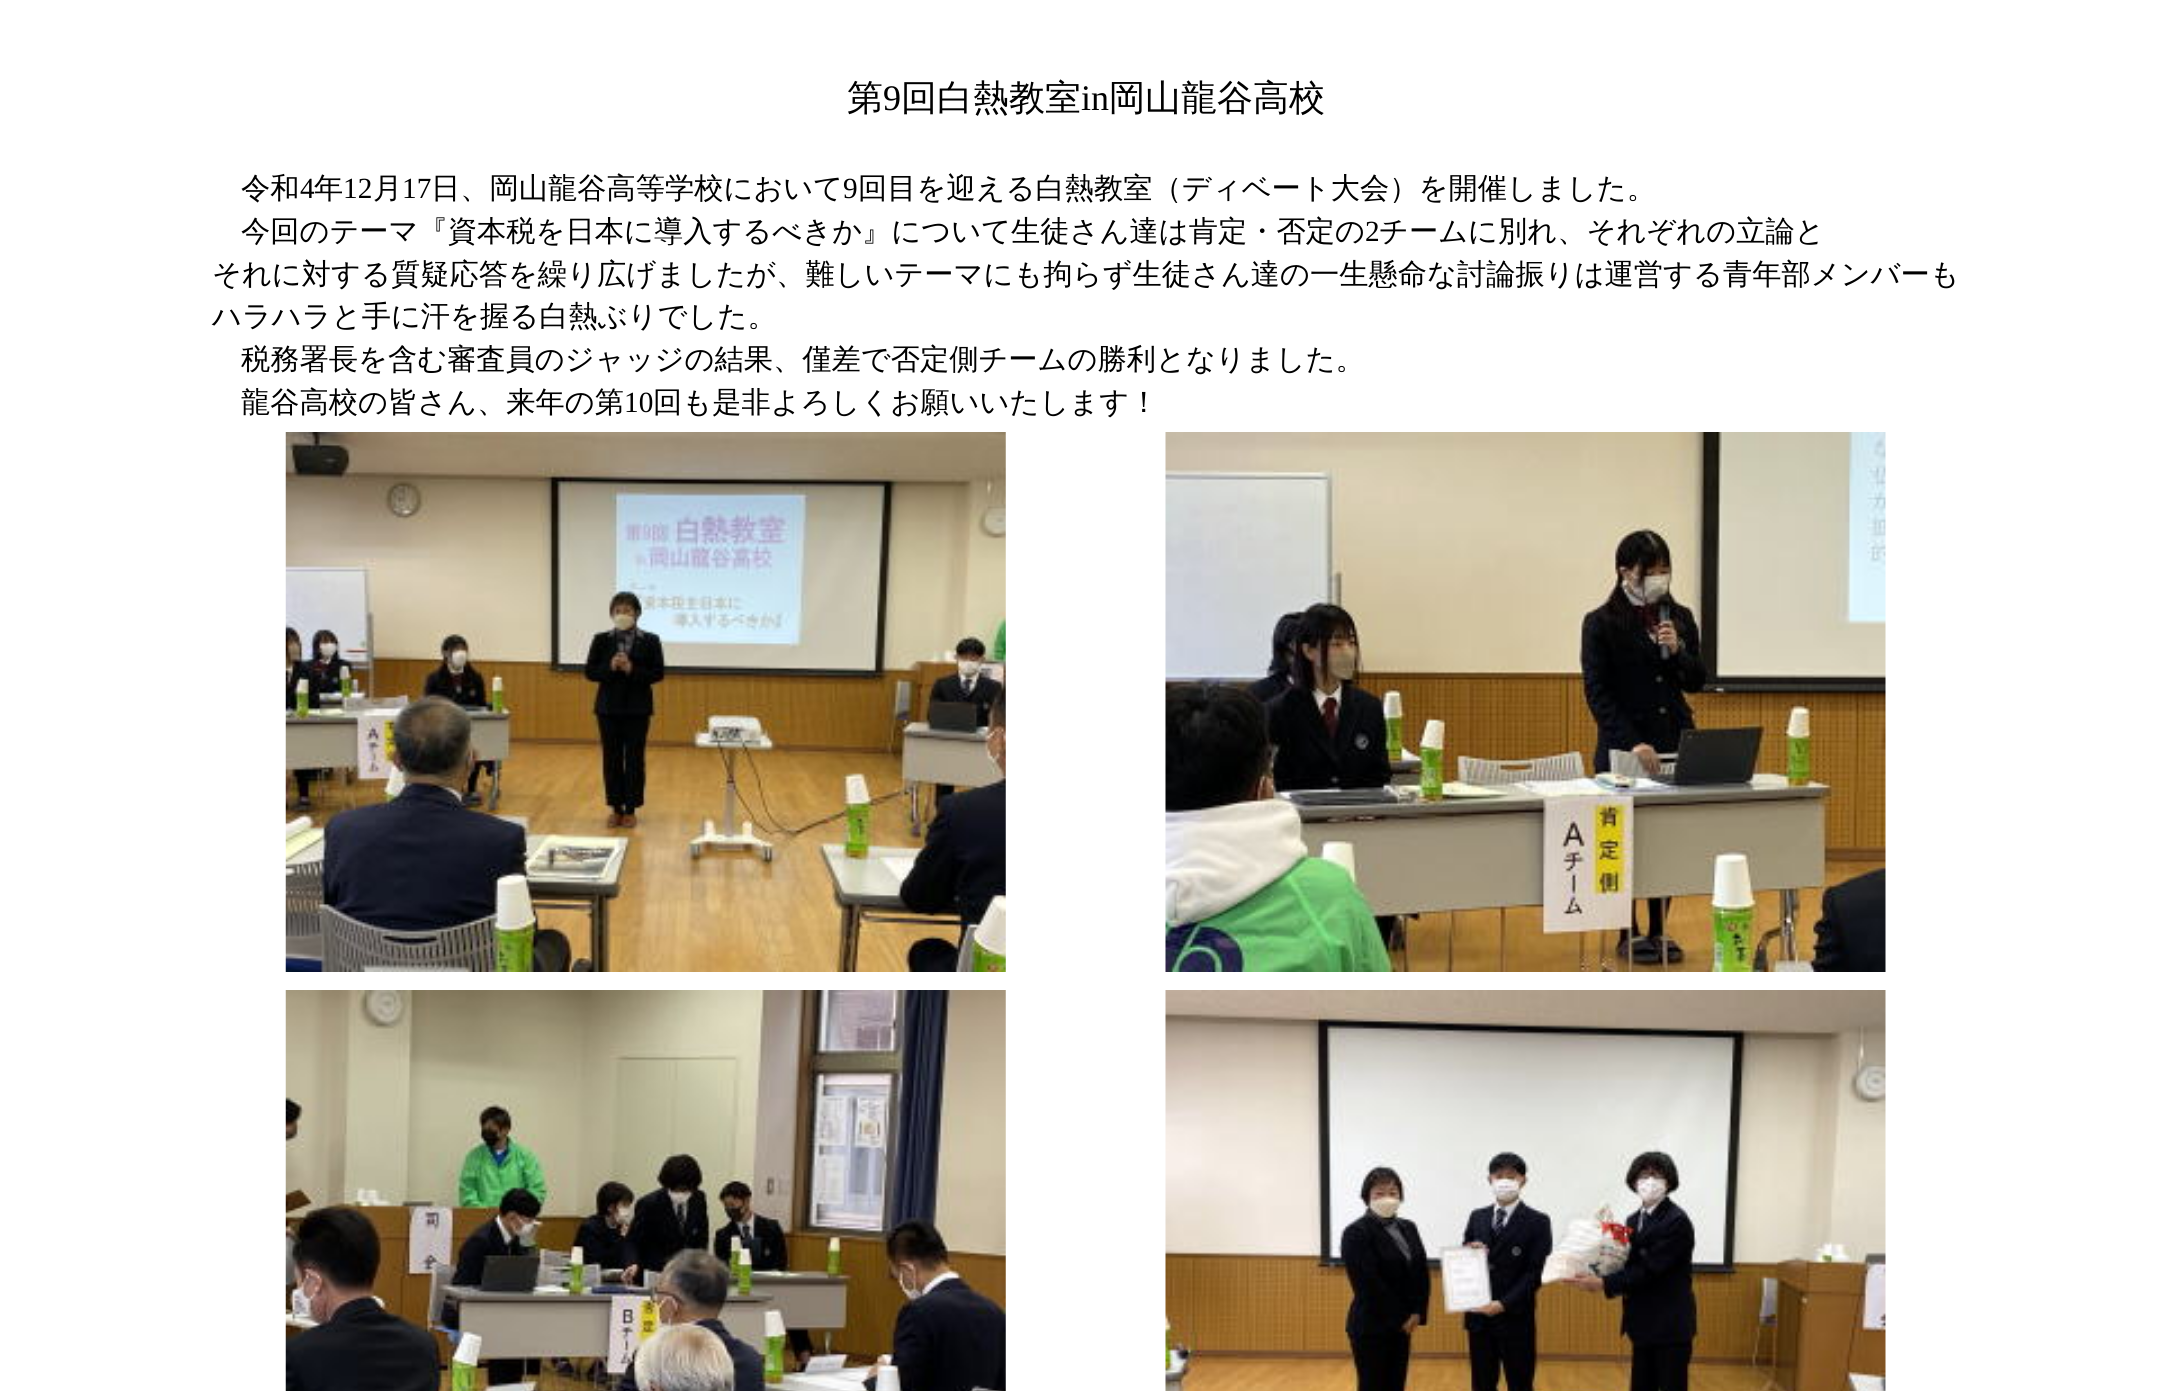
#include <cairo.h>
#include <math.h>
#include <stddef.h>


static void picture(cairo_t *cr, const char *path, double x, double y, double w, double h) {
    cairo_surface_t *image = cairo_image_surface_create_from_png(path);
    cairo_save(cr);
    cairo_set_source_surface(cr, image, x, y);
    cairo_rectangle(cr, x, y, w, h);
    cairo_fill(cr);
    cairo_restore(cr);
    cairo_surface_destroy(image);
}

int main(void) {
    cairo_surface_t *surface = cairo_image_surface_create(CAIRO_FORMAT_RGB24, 2171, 1391);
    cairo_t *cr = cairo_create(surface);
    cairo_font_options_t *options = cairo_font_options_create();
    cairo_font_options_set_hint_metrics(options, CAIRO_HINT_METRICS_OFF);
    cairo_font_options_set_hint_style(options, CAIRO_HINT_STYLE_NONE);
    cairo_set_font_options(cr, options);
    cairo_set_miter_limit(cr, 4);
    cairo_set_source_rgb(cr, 1, 1, 1);
    cairo_paint(cr);
    cairo_select_font_face(cr, "WenQuanYi Zen Hei Medium", CAIRO_FONT_SLANT_NORMAL, CAIRO_FONT_WEIGHT_NORMAL);
    cairo_set_font_size(cr, 36);
    cairo_set_source_rgb(cr, 0, 0, 0);
    cairo_move_to(cr, 847, 110);
    cairo_show_text(cr, "第");
    cairo_select_font_face(cr, "Liberation Serif", CAIRO_FONT_SLANT_NORMAL, CAIRO_FONT_WEIGHT_NORMAL);
    cairo_move_to(cr, 883, 110);
    cairo_show_text(cr, "9");
    cairo_select_font_face(cr, "WenQuanYi Zen Hei Medium", CAIRO_FONT_SLANT_NORMAL, CAIRO_FONT_WEIGHT_NORMAL);
    cairo_move_to(cr, 901, 110);
    cairo_show_text(cr, "回白熱教室");
    cairo_select_font_face(cr, "Liberation Serif", CAIRO_FONT_SLANT_NORMAL, CAIRO_FONT_WEIGHT_NORMAL);
    cairo_move_to(cr, 1081, 110);
    cairo_show_text(cr, "in");
    cairo_select_font_face(cr, "WenQuanYi Zen Hei Medium", CAIRO_FONT_SLANT_NORMAL, CAIRO_FONT_WEIGHT_NORMAL);
    cairo_move_to(cr, 1109, 110);
    cairo_show_text(cr, "岡山龍谷高校");
    cairo_set_font_size(cr, 29.25);
    cairo_move_to(cr, 241, 198);
    cairo_show_text(cr, "令和");
    cairo_select_font_face(cr, "Liberation Serif", CAIRO_FONT_SLANT_NORMAL, CAIRO_FONT_WEIGHT_NORMAL);
    cairo_move_to(cr, 300, 198);
    cairo_show_text(cr, "4");
    cairo_select_font_face(cr, "WenQuanYi Zen Hei Medium", CAIRO_FONT_SLANT_NORMAL, CAIRO_FONT_WEIGHT_NORMAL);
    cairo_move_to(cr, 314, 198);
    cairo_show_text(cr, "年");
    cairo_select_font_face(cr, "Liberation Serif", CAIRO_FONT_SLANT_NORMAL, CAIRO_FONT_WEIGHT_NORMAL);
    cairo_move_to(cr, 343, 198);
    cairo_show_text(cr, "12");
    cairo_select_font_face(cr, "WenQuanYi Zen Hei Medium", CAIRO_FONT_SLANT_NORMAL, CAIRO_FONT_WEIGHT_NORMAL);
    cairo_move_to(cr, 373, 198);
    cairo_show_text(cr, "月");
    cairo_select_font_face(cr, "Liberation Serif", CAIRO_FONT_SLANT_NORMAL, CAIRO_FONT_WEIGHT_NORMAL);
    cairo_move_to(cr, 402, 198);
    cairo_show_text(cr, "17");
    cairo_select_font_face(cr, "WenQuanYi Zen Hei Medium", CAIRO_FONT_SLANT_NORMAL, CAIRO_FONT_WEIGHT_NORMAL);
    cairo_move_to(cr, 431, 198);
    cairo_show_text(cr, "日、岡山龍谷高等学校において");
    cairo_select_font_face(cr, "Liberation Serif", CAIRO_FONT_SLANT_NORMAL, CAIRO_FONT_WEIGHT_NORMAL);
    cairo_move_to(cr, 843, 198);
    cairo_show_text(cr, "9");
    cairo_select_font_face(cr, "WenQuanYi Zen Hei Medium", CAIRO_FONT_SLANT_NORMAL, CAIRO_FONT_WEIGHT_NORMAL);
    cairo_move_to(cr, 858, 198);
    cairo_show_text(cr, "回目を迎える白熱教室（ディベート大会）を開催しました。");
    cairo_move_to(cr, 241, 241);
    cairo_show_text(cr, "今回のテーマ『資本税を日本に導入するべきか』について生徒さん達は肯定・否定の");
    cairo_select_font_face(cr, "Liberation Serif", CAIRO_FONT_SLANT_NORMAL, CAIRO_FONT_WEIGHT_NORMAL);
    cairo_move_to(cr, 1365, 241);
    cairo_show_text(cr, "2");
    cairo_select_font_face(cr, "WenQuanYi Zen Hei Medium", CAIRO_FONT_SLANT_NORMAL, CAIRO_FONT_WEIGHT_NORMAL);
    cairo_move_to(cr, 1379, 241);
    cairo_show_text(cr, "チームに別れ、それぞれの立論と");
    cairo_move_to(cr, 212, 284);
    cairo_show_text(cr, "それに対する質疑応答を繰り広げましたが、難しいテーマにも拘らず生徒さん達の一生懸命な討論振りは運営する青年部メンバーも");
    cairo_move_to(cr, 212, 326);
    cairo_show_text(cr, "ハラハラと手に汗を握る白熱ぶりでした。");
    cairo_move_to(cr, 241, 369);
    cairo_show_text(cr, "税務署長を含む審査員のジャッジの結果、僅差で否定側チームの勝利となりました。");
    cairo_move_to(cr, 241, 412);
    cairo_show_text(cr, "龍谷高校の皆さん、来年の第");
    cairo_select_font_face(cr, "Liberation Serif", CAIRO_FONT_SLANT_NORMAL, CAIRO_FONT_WEIGHT_NORMAL);
    cairo_move_to(cr, 624, 412);
    cairo_show_text(cr, "10");
    cairo_select_font_face(cr, "WenQuanYi Zen Hei Medium", CAIRO_FONT_SLANT_NORMAL, CAIRO_FONT_WEIGHT_NORMAL);
    cairo_move_to(cr, 653, 412);
    cairo_show_text(cr, "回も是非よろしくお願いいたします！");
    picture(cr, "img1.png", 285, 432, 721, 540);
    picture(cr, "img2.png", 1165, 432, 721, 540);
    picture(cr, "img3.png", 285, 990, 721, 401);
    picture(cr, "img4.png", 1165, 990, 721, 401);
    cairo_surface_write_to_png(surface, "page.png");
    cairo_font_options_destroy(options);
    cairo_destroy(cr);
    cairo_surface_destroy(surface);
    return 0;
}
